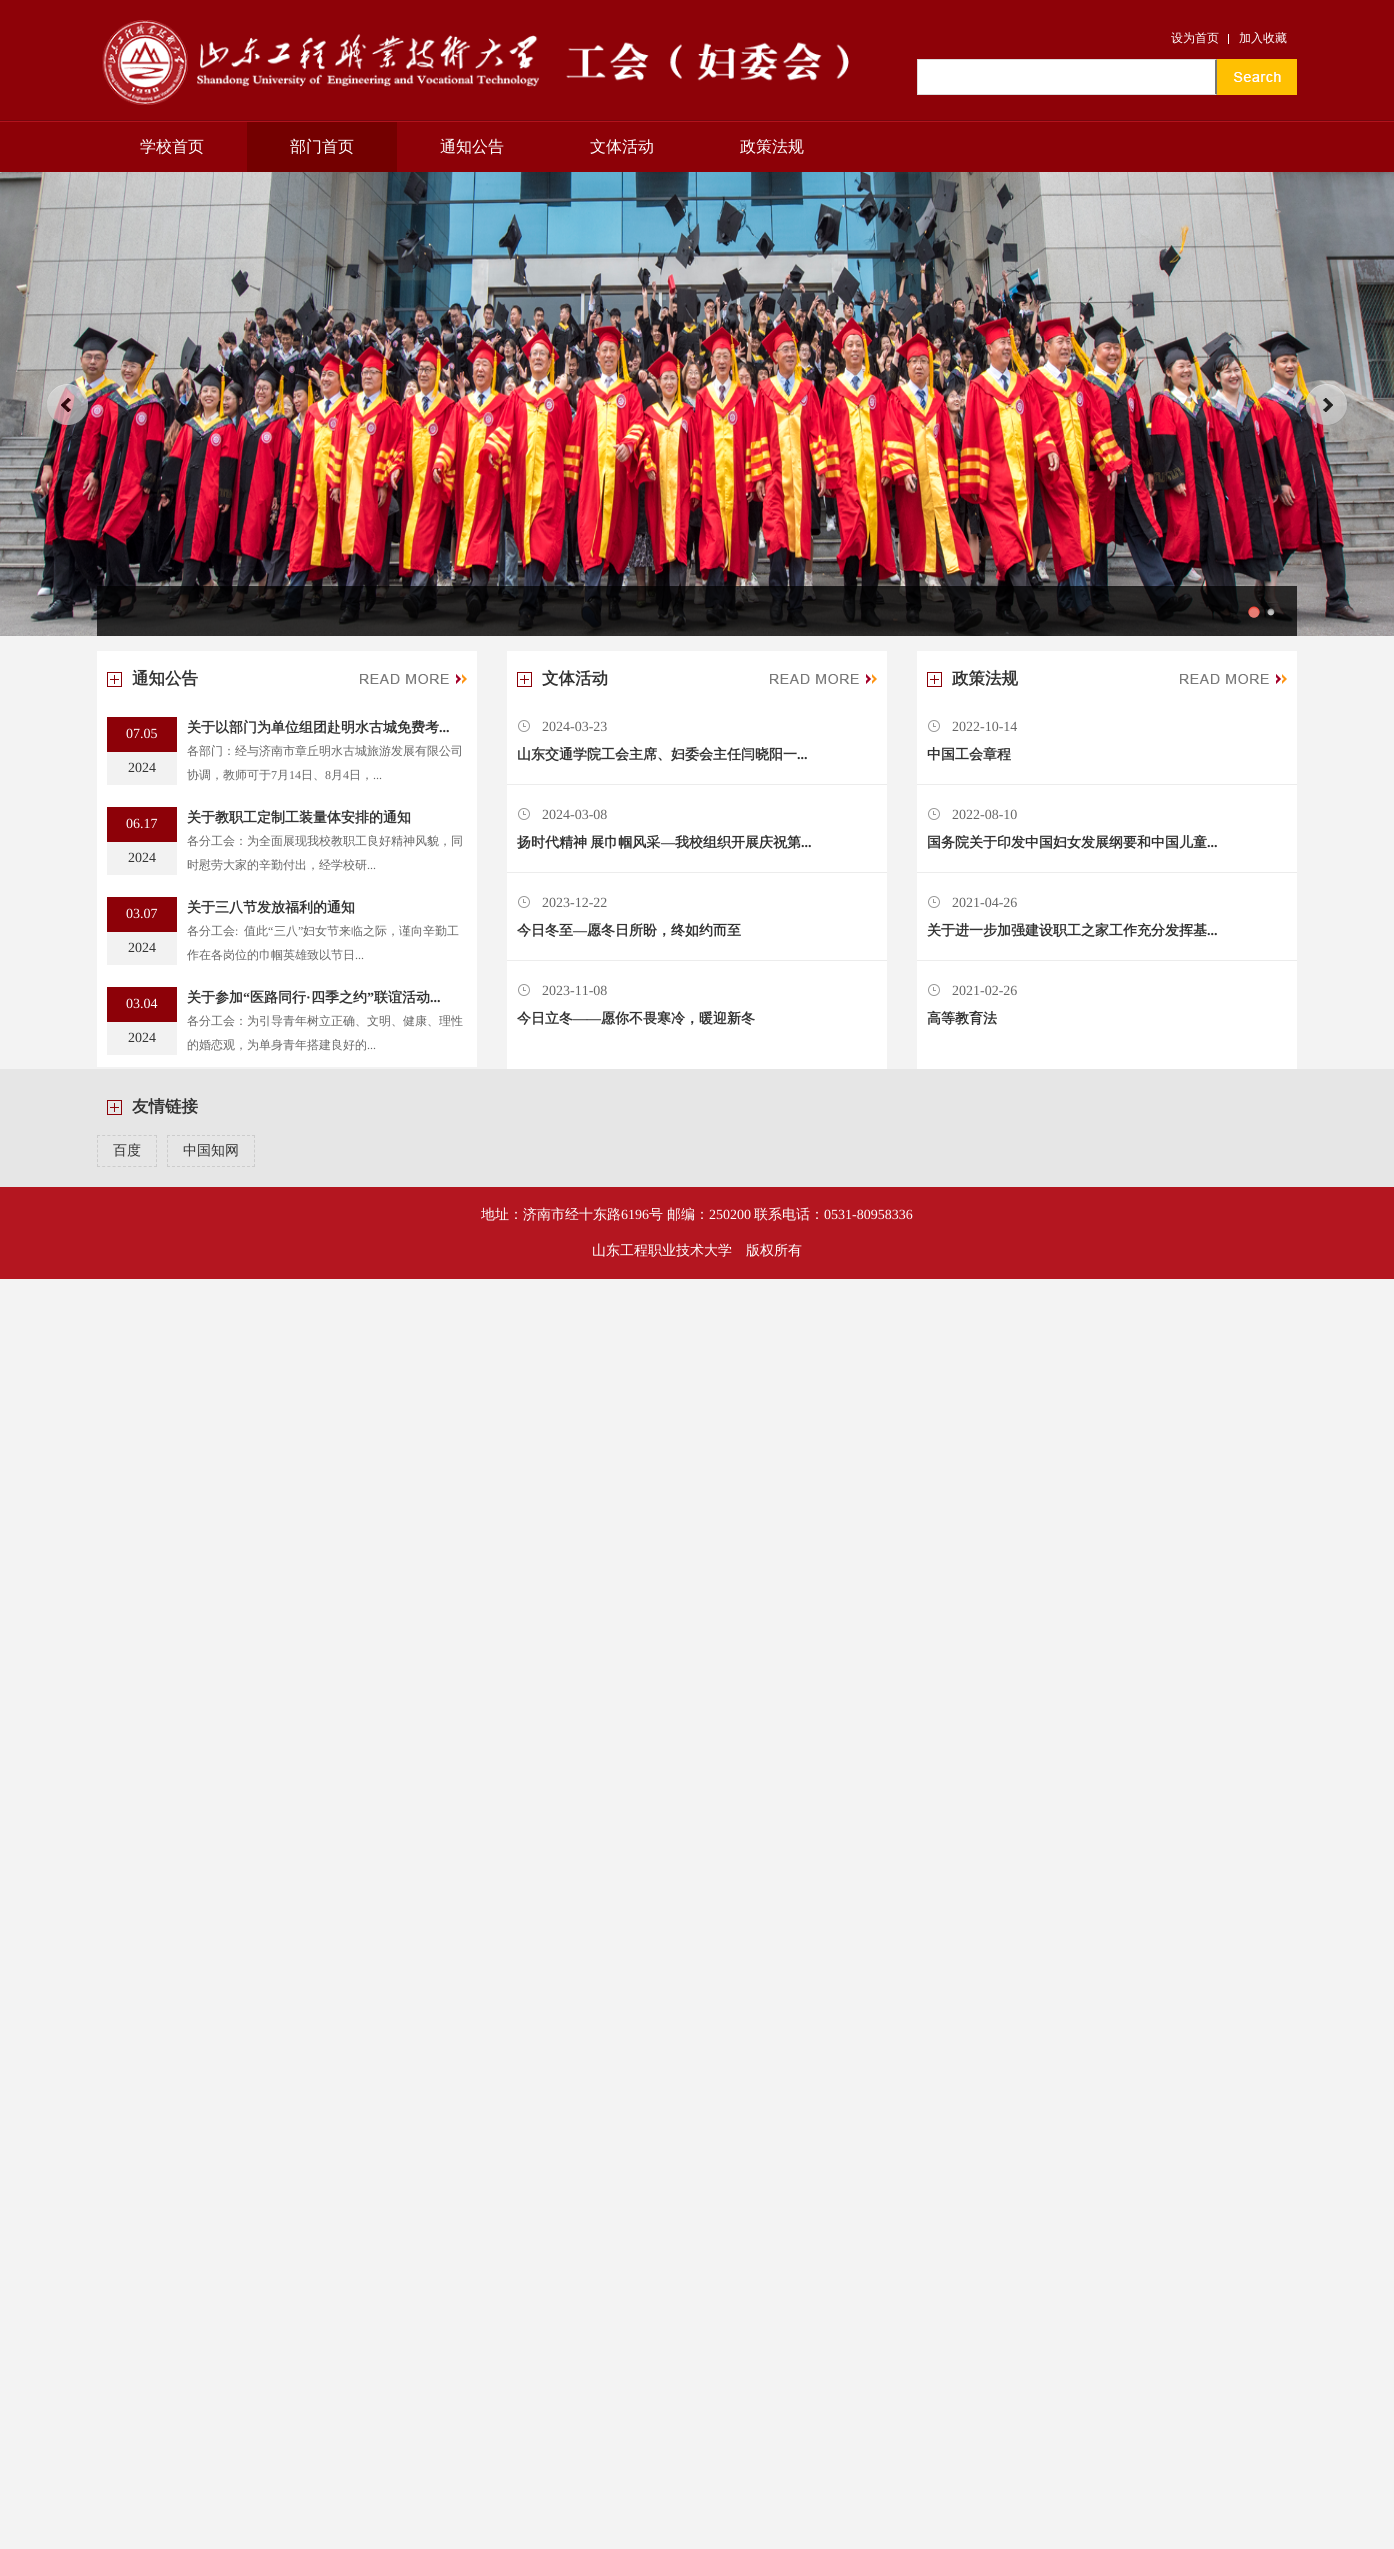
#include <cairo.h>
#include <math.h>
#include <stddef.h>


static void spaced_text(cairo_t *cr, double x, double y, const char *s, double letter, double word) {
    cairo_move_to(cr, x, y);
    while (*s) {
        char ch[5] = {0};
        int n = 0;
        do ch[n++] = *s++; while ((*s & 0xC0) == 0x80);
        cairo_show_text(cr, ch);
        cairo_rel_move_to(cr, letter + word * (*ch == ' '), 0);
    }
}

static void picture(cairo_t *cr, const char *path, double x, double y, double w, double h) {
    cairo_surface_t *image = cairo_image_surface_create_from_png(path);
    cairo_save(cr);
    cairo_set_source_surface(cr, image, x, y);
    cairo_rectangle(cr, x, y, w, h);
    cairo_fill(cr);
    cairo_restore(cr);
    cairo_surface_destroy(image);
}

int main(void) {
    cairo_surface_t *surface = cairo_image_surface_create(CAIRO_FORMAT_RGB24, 1394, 2549);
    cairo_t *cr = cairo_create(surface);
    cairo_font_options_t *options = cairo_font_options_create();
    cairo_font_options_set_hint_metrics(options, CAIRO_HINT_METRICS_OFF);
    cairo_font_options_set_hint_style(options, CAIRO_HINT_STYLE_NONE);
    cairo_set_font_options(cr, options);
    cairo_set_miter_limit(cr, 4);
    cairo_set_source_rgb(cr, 0.953, 0.953, 0.953);
    cairo_paint(cr);
    cairo_set_source_rgb(cr, 0.557, 0.008, 0.035);
    cairo_rectangle(cr, 0, 0, 1394, 120);
    cairo_fill(cr);
    cairo_set_source_rgb(cr, 0.455, 0.031, 0.055);
    cairo_rectangle(cr, 0, 120, 1394, 1);
    cairo_fill(cr);
    picture(cr, "img1.png", 102, 20, 747, 85);
    cairo_set_source_rgb(cr, 1, 1, 1);
    cairo_rectangle(cr, 1228, 34, 1, 10);
    cairo_fill(cr);
    cairo_select_font_face(cr, "WenQuanYi Zen Hei Medium", CAIRO_FONT_SLANT_NORMAL, CAIRO_FONT_WEIGHT_NORMAL);
    cairo_set_font_size(cr, 12);
    cairo_move_to(cr, 1171, 42);
    cairo_show_text(cr, "设为首页");
    cairo_move_to(cr, 1239, 42);
    cairo_show_text(cr, "加入收藏");
    cairo_rectangle(cr, 918, 59, 299, 36);
    cairo_fill(cr);
    cairo_set_source_rgb(cr, 0.863, 0.863, 0.863);
    cairo_new_path(cr);
    cairo_move_to(cr, 917, 59);
    cairo_line_to(cr, 1217, 59);
    cairo_line_to(cr, 1215, 60);
    cairo_line_to(cr, 918, 60);
    cairo_close_path(cr);
    cairo_fill(cr);
    cairo_set_source_rgb(cr, 0.463, 0.463, 0.463);
    cairo_new_path(cr);
    cairo_move_to(cr, 1217, 59);
    cairo_line_to(cr, 1217, 95);
    cairo_line_to(cr, 1215, 94);
    cairo_line_to(cr, 1215, 60);
    cairo_close_path(cr);
    cairo_fill(cr);
    cairo_set_source_rgb(cr, 0.863, 0.863, 0.863);
    cairo_new_path(cr);
    cairo_move_to(cr, 1217, 95);
    cairo_line_to(cr, 917, 95);
    cairo_line_to(cr, 918, 94);
    cairo_line_to(cr, 1215, 94);
    cairo_close_path(cr);
    cairo_fill(cr);
    cairo_rectangle(cr, 917, 59, 1, 36);
    cairo_fill(cr);
    picture(cr, "img2.png", 1217, 59, 80, 36);
    cairo_set_source_rgb(cr, 0.553, 0.004, 0.031);
    cairo_rectangle(cr, 0, 122, 1394, 50);
    cairo_fill(cr);
    cairo_set_source_rgb(cr, 0.698, 0.078, 0.114);
    cairo_rectangle(cr, 0, 121, 1394, 1);
    cairo_fill(cr);
    cairo_set_font_size(cr, 16);
    cairo_set_source_rgb(cr, 1, 1, 1);
    cairo_move_to(cr, 140, 152);
    cairo_show_text(cr, "学校首页");
    cairo_set_source_rgb(cr, 0.455, 0, 0);
    cairo_rectangle(cr, 247, 122, 150, 50);
    cairo_fill(cr);
    cairo_set_source_rgb(cr, 1, 1, 1);
    cairo_move_to(cr, 290, 152);
    cairo_show_text(cr, "部门首页");
    cairo_move_to(cr, 440, 152);
    cairo_show_text(cr, "通知公告");
    cairo_move_to(cr, 590, 152);
    cairo_show_text(cr, "文体活动");
    cairo_move_to(cr, 740, 152);
    cairo_show_text(cr, "政策法规");
    picture(cr, "img3.png", 0, 172, 1394, 464);
    picture(cr, "img4.png", 47, 384, 41, 41);
    picture(cr, "img5.png", 1306, 384, 41, 41);
    cairo_set_source_rgba(cr, 0, 0, 0, 0.75);
    cairo_rectangle(cr, 97, 586, 1200, 50);
    cairo_fill(cr);
    picture(cr, "img6.png", 1248, 606, 12, 12);
    picture(cr, "img7.png", 1267, 608, 8, 8);
    cairo_set_source_rgb(cr, 1, 1, 1);
    cairo_rectangle(cr, 97, 651, 380, 416);
    cairo_fill(cr);
    picture(cr, "img8.png", 107, 672, 15, 15);
    cairo_select_font_face(cr, "WenQuanYi Zen Hei", CAIRO_FONT_SLANT_NORMAL, CAIRO_FONT_WEIGHT_BOLD);
    cairo_set_font_size(cr, 16.5);
    cairo_set_source_rgb(cr, 0.2, 0.2, 0.2);
    cairo_move_to(cr, 132, 684);
    cairo_show_text(cr, "通知公告");
    picture(cr, "img9.png", 360, 674, 107, 10);
    picture(cr, "img10.png", 107, 717, 70, 68);
    cairo_select_font_face(cr, "Liberation Serif", CAIRO_FONT_SLANT_NORMAL, CAIRO_FONT_WEIGHT_NORMAL);
    cairo_set_font_size(cr, 14);
    cairo_set_source_rgb(cr, 1, 1, 1);
    cairo_move_to(cr, 126, 738);
    cairo_show_text(cr, "07.05");
    cairo_set_source_rgb(cr, 0.2, 0.2, 0.2);
    cairo_move_to(cr, 128, 772);
    cairo_show_text(cr, "2024");
    cairo_select_font_face(cr, "WenQuanYi Zen Hei", CAIRO_FONT_SLANT_NORMAL, CAIRO_FONT_WEIGHT_BOLD);
    cairo_move_to(cr, 187, 732);
    cairo_show_text(cr, "关于以部门为单位组团赴明水古城免费考");
    cairo_select_font_face(cr, "Liberation Serif", CAIRO_FONT_SLANT_NORMAL, CAIRO_FONT_WEIGHT_BOLD);
    cairo_move_to(cr, 439, 732);
    cairo_show_text(cr, "...");
    cairo_select_font_face(cr, "WenQuanYi Zen Hei Medium", CAIRO_FONT_SLANT_NORMAL, CAIRO_FONT_WEIGHT_NORMAL);
    cairo_set_font_size(cr, 12);
    cairo_set_source_rgb(cr, 0.4, 0.4, 0.4);
    cairo_move_to(cr, 187, 755);
    cairo_show_text(cr, "各部门：经与济南市章丘明水古城旅游发展有限公司");
    cairo_move_to(cr, 187, 779);
    cairo_show_text(cr, "协调，教师可于");
    cairo_select_font_face(cr, "Liberation Serif", CAIRO_FONT_SLANT_NORMAL, CAIRO_FONT_WEIGHT_NORMAL);
    cairo_move_to(cr, 271, 779);
    cairo_show_text(cr, "7");
    cairo_select_font_face(cr, "WenQuanYi Zen Hei Medium", CAIRO_FONT_SLANT_NORMAL, CAIRO_FONT_WEIGHT_NORMAL);
    cairo_move_to(cr, 277, 779);
    cairo_show_text(cr, "月");
    cairo_select_font_face(cr, "Liberation Serif", CAIRO_FONT_SLANT_NORMAL, CAIRO_FONT_WEIGHT_NORMAL);
    cairo_move_to(cr, 289, 779);
    cairo_show_text(cr, "14");
    cairo_select_font_face(cr, "WenQuanYi Zen Hei Medium", CAIRO_FONT_SLANT_NORMAL, CAIRO_FONT_WEIGHT_NORMAL);
    cairo_move_to(cr, 301, 779);
    cairo_show_text(cr, "日、");
    cairo_select_font_face(cr, "Liberation Serif", CAIRO_FONT_SLANT_NORMAL, CAIRO_FONT_WEIGHT_NORMAL);
    cairo_move_to(cr, 325, 779);
    cairo_show_text(cr, "8");
    cairo_select_font_face(cr, "WenQuanYi Zen Hei Medium", CAIRO_FONT_SLANT_NORMAL, CAIRO_FONT_WEIGHT_NORMAL);
    cairo_move_to(cr, 331, 779);
    cairo_show_text(cr, "月");
    cairo_select_font_face(cr, "Liberation Serif", CAIRO_FONT_SLANT_NORMAL, CAIRO_FONT_WEIGHT_NORMAL);
    cairo_move_to(cr, 343, 779);
    cairo_show_text(cr, "4");
    cairo_select_font_face(cr, "WenQuanYi Zen Hei Medium", CAIRO_FONT_SLANT_NORMAL, CAIRO_FONT_WEIGHT_NORMAL);
    cairo_move_to(cr, 349, 779);
    cairo_show_text(cr, "日，");
    cairo_select_font_face(cr, "Liberation Serif", CAIRO_FONT_SLANT_NORMAL, CAIRO_FONT_WEIGHT_NORMAL);
    cairo_move_to(cr, 373, 779);
    cairo_show_text(cr, "...");
    picture(cr, "img10.png", 107, 807, 70, 68);
    cairo_set_font_size(cr, 14);
    cairo_set_source_rgb(cr, 1, 1, 1);
    cairo_move_to(cr, 126, 828);
    cairo_show_text(cr, "06.17");
    cairo_set_source_rgb(cr, 0.2, 0.2, 0.2);
    cairo_move_to(cr, 128, 862);
    cairo_show_text(cr, "2024");
    cairo_select_font_face(cr, "WenQuanYi Zen Hei", CAIRO_FONT_SLANT_NORMAL, CAIRO_FONT_WEIGHT_BOLD);
    cairo_move_to(cr, 187, 822);
    cairo_show_text(cr, "关于教职工定制工装量体安排的通知");
    cairo_select_font_face(cr, "WenQuanYi Zen Hei Medium", CAIRO_FONT_SLANT_NORMAL, CAIRO_FONT_WEIGHT_NORMAL);
    cairo_set_font_size(cr, 12);
    cairo_set_source_rgb(cr, 0.4, 0.4, 0.4);
    cairo_move_to(cr, 187, 845);
    cairo_show_text(cr, "各分工会：为全面展现我校教职工良好精神风貌，同");
    cairo_move_to(cr, 187, 869);
    cairo_show_text(cr, "时慰劳大家的辛勤付出，经学校研");
    cairo_select_font_face(cr, "Liberation Serif", CAIRO_FONT_SLANT_NORMAL, CAIRO_FONT_WEIGHT_NORMAL);
    cairo_move_to(cr, 367, 869);
    cairo_show_text(cr, "...");
    picture(cr, "img10.png", 107, 897, 70, 68);
    cairo_set_font_size(cr, 14);
    cairo_set_source_rgb(cr, 1, 1, 1);
    cairo_move_to(cr, 126, 918);
    cairo_show_text(cr, "03.07");
    cairo_set_source_rgb(cr, 0.2, 0.2, 0.2);
    cairo_move_to(cr, 128, 952);
    cairo_show_text(cr, "2024");
    cairo_select_font_face(cr, "WenQuanYi Zen Hei", CAIRO_FONT_SLANT_NORMAL, CAIRO_FONT_WEIGHT_BOLD);
    cairo_move_to(cr, 187, 912);
    cairo_show_text(cr, "关于三八节发放福利的通知");
    cairo_select_font_face(cr, "WenQuanYi Zen Hei Medium", CAIRO_FONT_SLANT_NORMAL, CAIRO_FONT_WEIGHT_NORMAL);
    cairo_set_font_size(cr, 12);
    cairo_set_source_rgb(cr, 0.4, 0.4, 0.4);
    cairo_move_to(cr, 187, 935);
    cairo_show_text(cr, "各分工会");
    cairo_select_font_face(cr, "Liberation Serif", CAIRO_FONT_SLANT_NORMAL, CAIRO_FONT_WEIGHT_NORMAL);
    cairo_move_to(cr, 235, 935);
    cairo_show_text(cr, ":");
    cairo_select_font_face(cr, "WenQuanYi Zen Hei Medium", CAIRO_FONT_SLANT_NORMAL, CAIRO_FONT_WEIGHT_NORMAL);
    cairo_move_to(cr, 244, 935);
    cairo_show_text(cr, "值此");
    cairo_select_font_face(cr, "Liberation Serif", CAIRO_FONT_SLANT_NORMAL, CAIRO_FONT_WEIGHT_NORMAL);
    cairo_move_to(cr, 268, 935);
    cairo_show_text(cr, "“");
    cairo_select_font_face(cr, "WenQuanYi Zen Hei Medium", CAIRO_FONT_SLANT_NORMAL, CAIRO_FONT_WEIGHT_NORMAL);
    cairo_move_to(cr, 274, 935);
    cairo_show_text(cr, "三八");
    cairo_select_font_face(cr, "Liberation Serif", CAIRO_FONT_SLANT_NORMAL, CAIRO_FONT_WEIGHT_NORMAL);
    cairo_move_to(cr, 298, 935);
    cairo_show_text(cr, "”");
    cairo_select_font_face(cr, "WenQuanYi Zen Hei Medium", CAIRO_FONT_SLANT_NORMAL, CAIRO_FONT_WEIGHT_NORMAL);
    cairo_move_to(cr, 303, 935);
    cairo_show_text(cr, "妇女节来临之际，谨向辛勤工");
    cairo_move_to(cr, 187, 959);
    cairo_show_text(cr, "作在各岗位的巾帼英雄致以节日");
    cairo_select_font_face(cr, "Liberation Serif", CAIRO_FONT_SLANT_NORMAL, CAIRO_FONT_WEIGHT_NORMAL);
    cairo_move_to(cr, 355, 959);
    cairo_show_text(cr, "...");
    picture(cr, "img10.png", 107, 987, 70, 68);
    cairo_set_font_size(cr, 14);
    cairo_set_source_rgb(cr, 1, 1, 1);
    cairo_move_to(cr, 126, 1008);
    cairo_show_text(cr, "03.04");
    cairo_set_source_rgb(cr, 0.2, 0.2, 0.2);
    cairo_move_to(cr, 128, 1042);
    cairo_show_text(cr, "2024");
    cairo_select_font_face(cr, "WenQuanYi Zen Hei", CAIRO_FONT_SLANT_NORMAL, CAIRO_FONT_WEIGHT_BOLD);
    cairo_move_to(cr, 187, 1002);
    cairo_show_text(cr, "关于参加");
    cairo_select_font_face(cr, "Liberation Serif", CAIRO_FONT_SLANT_NORMAL, CAIRO_FONT_WEIGHT_BOLD);
    cairo_move_to(cr, 243, 1002);
    cairo_show_text(cr, "“");
    cairo_select_font_face(cr, "WenQuanYi Zen Hei", CAIRO_FONT_SLANT_NORMAL, CAIRO_FONT_WEIGHT_BOLD);
    cairo_move_to(cr, 250, 1002);
    cairo_show_text(cr, "医路同行");
    cairo_move_to(cr, 311, 1002);
    cairo_show_text(cr, "四季之约");
    cairo_select_font_face(cr, "Liberation Serif", CAIRO_FONT_SLANT_NORMAL, CAIRO_FONT_WEIGHT_BOLD);
    cairo_move_to(cr, 367, 1002);
    cairo_show_text(cr, "”");
    cairo_select_font_face(cr, "WenQuanYi Zen Hei", CAIRO_FONT_SLANT_NORMAL, CAIRO_FONT_WEIGHT_BOLD);
    cairo_move_to(cr, 374, 1002);
    cairo_show_text(cr, "联谊活动");
    cairo_select_font_face(cr, "Liberation Serif", CAIRO_FONT_SLANT_NORMAL, CAIRO_FONT_WEIGHT_BOLD);
    cairo_move_to(cr, 306, 1002);
    cairo_show_text(cr, "·");
    cairo_move_to(cr, 430, 1002);
    cairo_show_text(cr, "...");
    cairo_select_font_face(cr, "WenQuanYi Zen Hei Medium", CAIRO_FONT_SLANT_NORMAL, CAIRO_FONT_WEIGHT_NORMAL);
    cairo_set_font_size(cr, 12);
    cairo_set_source_rgb(cr, 0.4, 0.4, 0.4);
    cairo_move_to(cr, 187, 1025);
    cairo_show_text(cr, "各分工会：为引导青年树立正确、文明、健康、理性");
    cairo_move_to(cr, 187, 1049);
    cairo_show_text(cr, "的婚恋观，为单身青年搭建良好的");
    cairo_select_font_face(cr, "Liberation Serif", CAIRO_FONT_SLANT_NORMAL, CAIRO_FONT_WEIGHT_NORMAL);
    cairo_move_to(cr, 367, 1049);
    cairo_show_text(cr, "...");
    cairo_set_source_rgb(cr, 1, 1, 1);
    cairo_rectangle(cr, 507, 651, 380, 418);
    cairo_fill(cr);
    picture(cr, "img8.png", 517, 672, 15, 15);
    cairo_select_font_face(cr, "WenQuanYi Zen Hei", CAIRO_FONT_SLANT_NORMAL, CAIRO_FONT_WEIGHT_BOLD);
    cairo_set_font_size(cr, 16.5);
    cairo_set_source_rgb(cr, 0.2, 0.2, 0.2);
    cairo_move_to(cr, 542, 684);
    cairo_show_text(cr, "文体活动");
    picture(cr, "img9.png", 770, 674, 107, 10);
    cairo_set_source_rgb(cr, 0.925, 0.925, 0.925);
    cairo_rectangle(cr, 507, 784, 380, 1);
    cairo_fill(cr);
    picture(cr, "img11.png", 518, 720, 12, 12);
    cairo_select_font_face(cr, "Liberation Serif", CAIRO_FONT_SLANT_NORMAL, CAIRO_FONT_WEIGHT_NORMAL);
    cairo_set_font_size(cr, 14);
    cairo_set_source_rgb(cr, 0.4, 0.4, 0.4);
    cairo_move_to(cr, 542, 731);
    cairo_show_text(cr, "2024-03-23");
    cairo_select_font_face(cr, "WenQuanYi Zen Hei", CAIRO_FONT_SLANT_NORMAL, CAIRO_FONT_WEIGHT_BOLD);
    cairo_set_source_rgb(cr, 0.2, 0.2, 0.2);
    cairo_move_to(cr, 517, 759);
    cairo_show_text(cr, "山东交通学院工会主席、妇委会主任闫晓阳一");
    cairo_select_font_face(cr, "Liberation Serif", CAIRO_FONT_SLANT_NORMAL, CAIRO_FONT_WEIGHT_BOLD);
    cairo_move_to(cr, 797, 759);
    cairo_show_text(cr, "...");
    cairo_set_source_rgb(cr, 0.925, 0.925, 0.925);
    cairo_rectangle(cr, 507, 872, 380, 1);
    cairo_fill(cr);
    picture(cr, "img11.png", 518, 808, 12, 12);
    cairo_select_font_face(cr, "Liberation Serif", CAIRO_FONT_SLANT_NORMAL, CAIRO_FONT_WEIGHT_NORMAL);
    cairo_set_source_rgb(cr, 0.4, 0.4, 0.4);
    cairo_move_to(cr, 542, 819);
    cairo_show_text(cr, "2024-03-08");
    cairo_select_font_face(cr, "WenQuanYi Zen Hei", CAIRO_FONT_SLANT_NORMAL, CAIRO_FONT_WEIGHT_BOLD);
    cairo_set_source_rgb(cr, 0.2, 0.2, 0.2);
    spaced_text(cr, 517, 847, "扬时代精神 展巾帼风采", 0, -1);
    cairo_select_font_face(cr, "Liberation Serif", CAIRO_FONT_SLANT_NORMAL, CAIRO_FONT_WEIGHT_BOLD);
    cairo_move_to(cr, 661, 847);
    cairo_show_text(cr, "—");
    cairo_select_font_face(cr, "WenQuanYi Zen Hei", CAIRO_FONT_SLANT_NORMAL, CAIRO_FONT_WEIGHT_BOLD);
    cairo_move_to(cr, 675, 847);
    cairo_show_text(cr, "我校组织开展庆祝第");
    cairo_select_font_face(cr, "Liberation Serif", CAIRO_FONT_SLANT_NORMAL, CAIRO_FONT_WEIGHT_BOLD);
    cairo_move_to(cr, 801, 847);
    cairo_show_text(cr, "...");
    cairo_set_source_rgb(cr, 0.925, 0.925, 0.925);
    cairo_rectangle(cr, 507, 960, 380, 1);
    cairo_fill(cr);
    picture(cr, "img11.png", 518, 896, 12, 12);
    cairo_select_font_face(cr, "Liberation Serif", CAIRO_FONT_SLANT_NORMAL, CAIRO_FONT_WEIGHT_NORMAL);
    cairo_set_source_rgb(cr, 0.4, 0.4, 0.4);
    cairo_move_to(cr, 542, 907);
    cairo_show_text(cr, "2023-12-22");
    cairo_select_font_face(cr, "WenQuanYi Zen Hei", CAIRO_FONT_SLANT_NORMAL, CAIRO_FONT_WEIGHT_BOLD);
    cairo_set_source_rgb(cr, 0.2, 0.2, 0.2);
    cairo_move_to(cr, 517, 935);
    cairo_show_text(cr, "今日冬至");
    cairo_select_font_face(cr, "Liberation Serif", CAIRO_FONT_SLANT_NORMAL, CAIRO_FONT_WEIGHT_BOLD);
    cairo_move_to(cr, 573, 935);
    cairo_show_text(cr, "—");
    cairo_select_font_face(cr, "WenQuanYi Zen Hei", CAIRO_FONT_SLANT_NORMAL, CAIRO_FONT_WEIGHT_BOLD);
    cairo_move_to(cr, 587, 935);
    cairo_show_text(cr, "愿冬日所盼，终如约而至");
    picture(cr, "img11.png", 518, 984, 12, 12);
    cairo_select_font_face(cr, "Liberation Serif", CAIRO_FONT_SLANT_NORMAL, CAIRO_FONT_WEIGHT_NORMAL);
    cairo_set_source_rgb(cr, 0.4, 0.4, 0.4);
    cairo_move_to(cr, 542, 995);
    cairo_show_text(cr, "2023-11-08");
    cairo_select_font_face(cr, "WenQuanYi Zen Hei", CAIRO_FONT_SLANT_NORMAL, CAIRO_FONT_WEIGHT_BOLD);
    cairo_set_source_rgb(cr, 0.2, 0.2, 0.2);
    cairo_move_to(cr, 517, 1023);
    cairo_show_text(cr, "今日立冬");
    cairo_select_font_face(cr, "Liberation Serif", CAIRO_FONT_SLANT_NORMAL, CAIRO_FONT_WEIGHT_BOLD);
    cairo_move_to(cr, 573, 1023);
    cairo_show_text(cr, "——");
    cairo_select_font_face(cr, "WenQuanYi Zen Hei", CAIRO_FONT_SLANT_NORMAL, CAIRO_FONT_WEIGHT_BOLD);
    cairo_move_to(cr, 601, 1023);
    cairo_show_text(cr, "愿你不畏寒冷，暖迎新冬");
    cairo_set_source_rgb(cr, 1, 1, 1);
    cairo_rectangle(cr, 917, 651, 380, 418);
    cairo_fill(cr);
    picture(cr, "img8.png", 927, 672, 15, 15);
    cairo_set_font_size(cr, 16.5);
    cairo_set_source_rgb(cr, 0.2, 0.2, 0.2);
    cairo_move_to(cr, 952, 684);
    cairo_show_text(cr, "政策法规");
    picture(cr, "img9.png", 1180, 674, 107, 10);
    cairo_set_source_rgb(cr, 0.925, 0.925, 0.925);
    cairo_rectangle(cr, 917, 784, 380, 1);
    cairo_fill(cr);
    picture(cr, "img11.png", 928, 720, 12, 12);
    cairo_select_font_face(cr, "Liberation Serif", CAIRO_FONT_SLANT_NORMAL, CAIRO_FONT_WEIGHT_NORMAL);
    cairo_set_font_size(cr, 14);
    cairo_set_source_rgb(cr, 0.4, 0.4, 0.4);
    cairo_move_to(cr, 952, 731);
    cairo_show_text(cr, "2022-10-14");
    cairo_select_font_face(cr, "WenQuanYi Zen Hei", CAIRO_FONT_SLANT_NORMAL, CAIRO_FONT_WEIGHT_BOLD);
    cairo_set_source_rgb(cr, 0.2, 0.2, 0.2);
    cairo_move_to(cr, 927, 759);
    cairo_show_text(cr, "中国工会章程");
    cairo_set_source_rgb(cr, 0.925, 0.925, 0.925);
    cairo_rectangle(cr, 917, 872, 380, 1);
    cairo_fill(cr);
    picture(cr, "img11.png", 928, 808, 12, 12);
    cairo_select_font_face(cr, "Liberation Serif", CAIRO_FONT_SLANT_NORMAL, CAIRO_FONT_WEIGHT_NORMAL);
    cairo_set_source_rgb(cr, 0.4, 0.4, 0.4);
    cairo_move_to(cr, 952, 819);
    cairo_show_text(cr, "2022-08-10");
    cairo_select_font_face(cr, "WenQuanYi Zen Hei", CAIRO_FONT_SLANT_NORMAL, CAIRO_FONT_WEIGHT_BOLD);
    cairo_set_source_rgb(cr, 0.2, 0.2, 0.2);
    cairo_move_to(cr, 927, 847);
    cairo_show_text(cr, "国务院关于印发中国妇女发展纲要和中国儿童");
    cairo_select_font_face(cr, "Liberation Serif", CAIRO_FONT_SLANT_NORMAL, CAIRO_FONT_WEIGHT_BOLD);
    cairo_move_to(cr, 1207, 847);
    cairo_show_text(cr, "...");
    cairo_set_source_rgb(cr, 0.925, 0.925, 0.925);
    cairo_rectangle(cr, 917, 960, 380, 1);
    cairo_fill(cr);
    picture(cr, "img11.png", 928, 896, 12, 12);
    cairo_select_font_face(cr, "Liberation Serif", CAIRO_FONT_SLANT_NORMAL, CAIRO_FONT_WEIGHT_NORMAL);
    cairo_set_source_rgb(cr, 0.4, 0.4, 0.4);
    cairo_move_to(cr, 952, 907);
    cairo_show_text(cr, "2021-04-26");
    cairo_select_font_face(cr, "WenQuanYi Zen Hei", CAIRO_FONT_SLANT_NORMAL, CAIRO_FONT_WEIGHT_BOLD);
    cairo_set_source_rgb(cr, 0.2, 0.2, 0.2);
    cairo_move_to(cr, 927, 935);
    cairo_show_text(cr, "关于进一步加强建设职工之家工作充分发挥基");
    cairo_select_font_face(cr, "Liberation Serif", CAIRO_FONT_SLANT_NORMAL, CAIRO_FONT_WEIGHT_BOLD);
    cairo_move_to(cr, 1207, 935);
    cairo_show_text(cr, "...");
    picture(cr, "img11.png", 928, 984, 12, 12);
    cairo_select_font_face(cr, "Liberation Serif", CAIRO_FONT_SLANT_NORMAL, CAIRO_FONT_WEIGHT_NORMAL);
    cairo_set_source_rgb(cr, 0.4, 0.4, 0.4);
    cairo_move_to(cr, 952, 995);
    cairo_show_text(cr, "2021-02-26");
    cairo_select_font_face(cr, "WenQuanYi Zen Hei", CAIRO_FONT_SLANT_NORMAL, CAIRO_FONT_WEIGHT_BOLD);
    cairo_set_source_rgb(cr, 0.2, 0.2, 0.2);
    cairo_move_to(cr, 927, 1023);
    cairo_show_text(cr, "高等教育法");
    cairo_set_source_rgb(cr, 0.902, 0.902, 0.902);
    cairo_rectangle(cr, 0, 1069, 1394, 118);
    cairo_fill(cr);
    picture(cr, "img12.png", 107, 1100, 15, 15);
    cairo_set_font_size(cr, 16.5);
    cairo_set_source_rgb(cr, 0.2, 0.2, 0.2);
    cairo_move_to(cr, 132, 1112);
    cairo_show_text(cr, "友情链接");
    cairo_new_path(cr);
    cairo_move_to(cr, 97, 1135.5);
    cairo_line_to(cr, 157, 1135.5);
    cairo_set_source_rgb(cr, 0.8, 0.8, 0.8);
    cairo_set_line_width(cr, 1);
    cairo_set_dash(cr, (double[]){3, 2.18}, 2, 0);
    cairo_stroke(cr);
    cairo_new_path(cr);
    cairo_move_to(cr, 156.5, 1135);
    cairo_line_to(cr, 156.5, 1167);
    cairo_set_dash(cr, (double[]){3, 1.83}, 2, 0);
    cairo_stroke(cr);
    cairo_new_path(cr);
    cairo_move_to(cr, 97, 1166.5);
    cairo_line_to(cr, 157, 1166.5);
    cairo_set_dash(cr, (double[]){3, 2.18}, 2, 0);
    cairo_stroke(cr);
    cairo_new_path(cr);
    cairo_move_to(cr, 97.5, 1135);
    cairo_line_to(cr, 97.5, 1167);
    cairo_set_dash(cr, (double[]){3, 1.83}, 2, 0);
    cairo_stroke(cr);
    cairo_select_font_face(cr, "WenQuanYi Zen Hei Medium", CAIRO_FONT_SLANT_NORMAL, CAIRO_FONT_WEIGHT_NORMAL);
    cairo_set_font_size(cr, 14);
    cairo_set_source_rgb(cr, 0.2, 0.2, 0.2);
    cairo_move_to(cr, 113, 1155);
    cairo_show_text(cr, "百度");
    cairo_new_path(cr);
    cairo_move_to(cr, 167, 1135.5);
    cairo_line_to(cr, 255, 1135.5);
    cairo_set_source_rgb(cr, 0.8, 0.8, 0.8);
    cairo_set_dash(cr, (double[]){3, 2}, 2, 0);
    cairo_stroke(cr);
    cairo_new_path(cr);
    cairo_move_to(cr, 254.5, 1135);
    cairo_line_to(cr, 254.5, 1167);
    cairo_set_dash(cr, (double[]){3, 1.83}, 2, 0);
    cairo_stroke(cr);
    cairo_new_path(cr);
    cairo_move_to(cr, 167, 1166.5);
    cairo_line_to(cr, 255, 1166.5);
    cairo_set_dash(cr, (double[]){3, 2}, 2, 0);
    cairo_stroke(cr);
    cairo_new_path(cr);
    cairo_move_to(cr, 167.5, 1135);
    cairo_line_to(cr, 167.5, 1167);
    cairo_set_dash(cr, (double[]){3, 1.83}, 2, 0);
    cairo_stroke(cr);
    cairo_set_source_rgb(cr, 0.2, 0.2, 0.2);
    cairo_move_to(cr, 183, 1155);
    cairo_show_text(cr, "中国知网");
    cairo_set_source_rgb(cr, 0.706, 0.086, 0.125);
    cairo_rectangle(cr, 0, 1187, 1394, 92);
    cairo_fill(cr);
    cairo_set_source_rgb(cr, 1, 1, 1);
    cairo_move_to(cr, 481, 1219);
    cairo_show_text(cr, "地址：济南市经十东路");
    cairo_select_font_face(cr, "Liberation Serif", CAIRO_FONT_SLANT_NORMAL, CAIRO_FONT_WEIGHT_NORMAL);
    cairo_move_to(cr, 621, 1219);
    cairo_show_text(cr, "6196");
    cairo_select_font_face(cr, "WenQuanYi Zen Hei Medium", CAIRO_FONT_SLANT_NORMAL, CAIRO_FONT_WEIGHT_NORMAL);
    cairo_move_to(cr, 649, 1219);
    cairo_show_text(cr, "号");
    cairo_move_to(cr, 667, 1219);
    cairo_show_text(cr, "邮编：");
    cairo_select_font_face(cr, "Liberation Serif", CAIRO_FONT_SLANT_NORMAL, CAIRO_FONT_WEIGHT_NORMAL);
    cairo_move_to(cr, 709, 1219);
    cairo_show_text(cr, "250200");
    cairo_select_font_face(cr, "WenQuanYi Zen Hei Medium", CAIRO_FONT_SLANT_NORMAL, CAIRO_FONT_WEIGHT_NORMAL);
    cairo_move_to(cr, 754, 1219);
    cairo_show_text(cr, "联系电话：");
    cairo_select_font_face(cr, "Liberation Serif", CAIRO_FONT_SLANT_NORMAL, CAIRO_FONT_WEIGHT_NORMAL);
    cairo_move_to(cr, 824, 1219);
    cairo_show_text(cr, "0531-80958336");
    cairo_select_font_face(cr, "WenQuanYi Zen Hei Medium", CAIRO_FONT_SLANT_NORMAL, CAIRO_FONT_WEIGHT_NORMAL);
    cairo_move_to(cr, 592, 1255);
    cairo_show_text(cr, "山东工程职业技术大学　版权所有");
    cairo_surface_write_to_png(surface, "page.png");
    cairo_font_options_destroy(options);
    cairo_destroy(cr);
    cairo_surface_destroy(surface);
    return 0;
}
